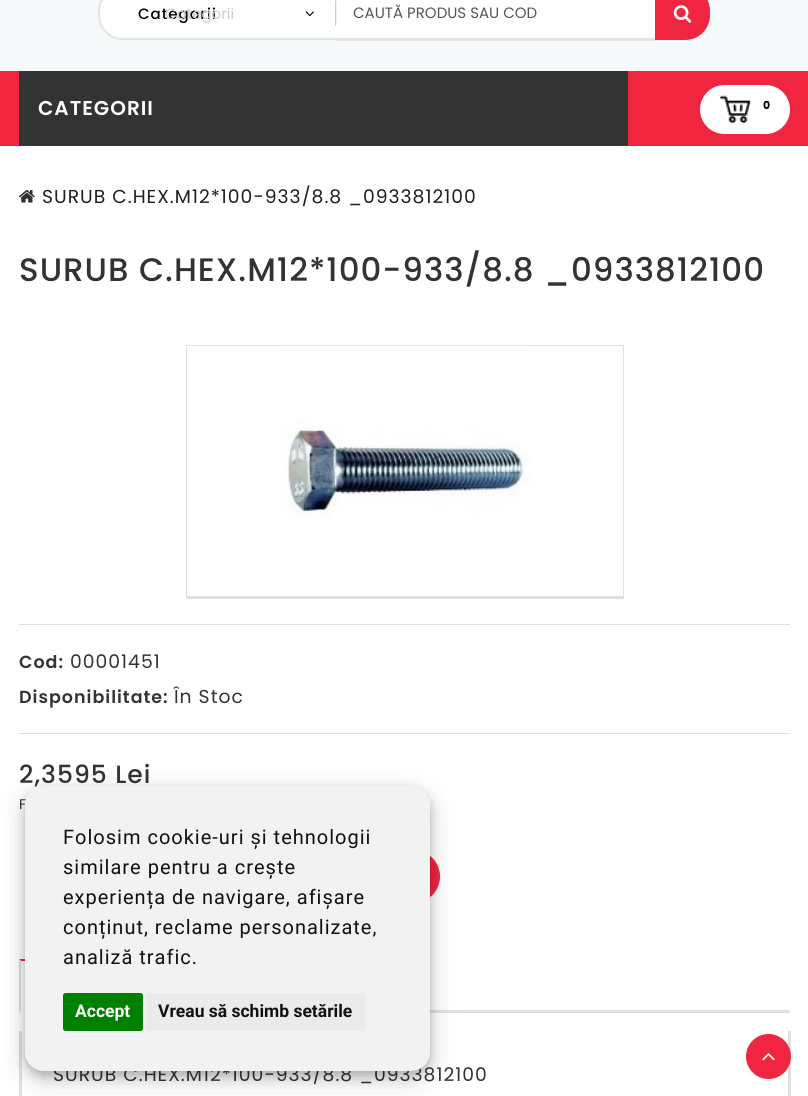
#include <cairo.h>
#include <math.h>
#include <stddef.h>


static void spaced_text(cairo_t *cr, double x, double y, const char *s, double letter, double word) {
    cairo_move_to(cr, x, y);
    while (*s) {
        char ch[5] = {0};
        int n = 0;
        do ch[n++] = *s++; while ((*s & 0xC0) == 0x80);
        cairo_show_text(cr, ch);
        cairo_rel_move_to(cr, letter + word * (*ch == ' '), 0);
    }
}

static void round_rect(cairo_t *cr, double x, double y, double w, double h, double r) {
    cairo_new_sub_path(cr);
    cairo_arc(cr, x + w - r, y + h - r, r, 0, M_PI / 2);
    cairo_arc(cr, x + r, y + h - r, r, M_PI / 2, M_PI);
    cairo_arc(cr, x + r, y + r, r, M_PI, 1.5 * M_PI);
    cairo_arc(cr, x + w - r, y + r, r, 1.5 * M_PI, 2 * M_PI);
    cairo_close_path(cr);
}

static void shadow(cairo_t *cr, double x, double y, double w, double h, double r, double blur, double alpha) {
    cairo_push_group_with_content(cr, CAIRO_CONTENT_ALPHA);
    cairo_set_operator(cr, CAIRO_OPERATOR_SOURCE);
    for (int i = 15; i >= -15 && fmin(w, h) + blur * i / 3 > 0; i -= 2) {
        double e = blur * i / 6;
        cairo_set_source_rgba(cr, 0, 0, 0, alpha * erfc((i - 1) / 8.5) / 2);
        round_rect(cr, x - e, y - e, w + 2 * e, h + 2 * e, fmax(0, fmin(r + e + blur * .6, fmin(w, h) / 2 + e)));
        cairo_fill(cr);
    }
    cairo_pattern_t *soft = cairo_pop_group(cr);
    cairo_mask(cr, soft);
    cairo_pattern_destroy(soft);
}

static void picture(cairo_t *cr, const char *path, double x, double y, double w, double h) {
    cairo_surface_t *image = cairo_image_surface_create_from_png(path);
    cairo_save(cr);
    cairo_set_source_surface(cr, image, x, y);
    cairo_rectangle(cr, x, y, w, h);
    cairo_fill(cr);
    cairo_restore(cr);
    cairo_surface_destroy(image);
}

int main(void) {
    cairo_surface_t *surface = cairo_image_surface_create(CAIRO_FORMAT_RGB24, 808, 1096);
    cairo_t *cr = cairo_create(surface);
    cairo_font_options_t *options = cairo_font_options_create();
    cairo_font_options_set_hint_metrics(options, CAIRO_HINT_METRICS_OFF);
    cairo_font_options_set_hint_style(options, CAIRO_HINT_STYLE_NONE);
    cairo_set_font_options(cr, options);
    cairo_set_miter_limit(cr, 4);
    cairo_set_source_rgb(cr, 1, 1, 1);
    cairo_paint(cr);
    cairo_set_source_rgb(cr, 0.961, 0.973, 0.976);
    cairo_rectangle(cr, 0, 0, 808, 71);
    cairo_fill(cr);
    cairo_set_source_rgb(cr, 1, 1, 1);
    cairo_new_path(cr);
    cairo_move_to(cr, 123, -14);
    cairo_line_to(cr, 335, -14);
    cairo_line_to(cr, 335, 40);
    cairo_line_to(cr, 123, 40);
    cairo_curve_to(cr, 109, 40, 98, 29, 98, 15);
    cairo_line_to(cr, 98, 11);
    cairo_curve_to(cr, 98, -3, 109, -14, 123, -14);
    cairo_close_path(cr);
    cairo_fill(cr);
    cairo_set_source_rgb(cr, 0.898, 0.898, 0.898);
    cairo_set_fill_rule(cr, CAIRO_FILL_RULE_EVEN_ODD);
    cairo_new_path(cr);
    cairo_move_to(cr, 122, -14);
    cairo_line_to(cr, 335, -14);
    cairo_line_to(cr, 335, 40);
    cairo_line_to(cr, 122, 40);
    cairo_curve_to(cr, 109, 40, 98, 29, 98, 15);
    cairo_line_to(cr, 98, 11);
    cairo_curve_to(cr, 98, -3, 109, -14, 122, -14);
    cairo_close_path(cr);
    cairo_move_to(cr, 122, -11);
    cairo_line_to(cr, 335, -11);
    cairo_line_to(cr, 335, 38);
    cairo_line_to(cr, 122, 38);
    cairo_curve_to(cr, 110, 38, 100, 27, 100, 15);
    cairo_line_to(cr, 100, 11);
    cairo_curve_to(cr, 100, -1, 110, -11, 122, -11);
    cairo_close_path(cr);
    cairo_fill(cr);
    cairo_select_font_face(cr, "Poppins Medium", CAIRO_FONT_SLANT_NORMAL, CAIRO_FONT_WEIGHT_NORMAL);
    cairo_set_font_size(cr, 15);
    cairo_set_source_rgb(cr, 0, 0, 0);
    spaced_text(cr, 138, 19, "Categorii", 1, 0);
    picture(cr, "img1.png", 305, 11, 9, 6);
    cairo_select_font_face(cr, "Poppins", CAIRO_FONT_SLANT_NORMAL, CAIRO_FONT_WEIGHT_NORMAL);
    cairo_set_source_rgb(cr, 0.804, 0.804, 0.804);
    cairo_move_to(cr, 165, 19);
    cairo_show_text(cr, "Categorii");
    cairo_set_source_rgb(cr, 1, 1, 1);
    cairo_rectangle(cr, 335, 0, 320, 38);
    cairo_fill(cr);
    picture(cr, "img2.png", 335, 0, 2, 26);
    cairo_set_source_rgb(cr, 0.898, 0.898, 0.898);
    cairo_rectangle(cr, 335, 38, 320, 3);
    cairo_fill(cr);
    cairo_set_source_rgb(cr, 0.333, 0.333, 0.333);
    cairo_move_to(cr, 353, 18);
    cairo_show_text(cr, "CAUTĂ PRODUS SAU COD");
    cairo_set_source_rgb(cr, 0.941, 0.149, 0.251);
    cairo_new_path(cr);
    cairo_move_to(cr, 655, -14);
    cairo_line_to(cr, 685, -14);
    cairo_curve_to(cr, 699, -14, 710, -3, 710, 11);
    cairo_line_to(cr, 710, 15);
    cairo_curve_to(cr, 710, 29, 699, 40, 685, 40);
    cairo_line_to(cr, 655, 40);
    cairo_close_path(cr);
    cairo_fill(cr);
    picture(cr, "img3.png", 673, 5, 19, 18);
    cairo_rectangle(cr, 0, 71, 808, 75);
    cairo_fill(cr);
    cairo_set_source_rgb(cr, 0.2, 0.2, 0.2);
    cairo_rectangle(cr, 19, 71, 609, 75);
    cairo_fill(cr);
    cairo_select_font_face(cr, "Poppins SemiBold", CAIRO_FONT_SLANT_NORMAL, CAIRO_FONT_WEIGHT_NORMAL);
    cairo_set_font_size(cr, 20);
    cairo_set_source_rgb(cr, 1, 1, 1);
    spaced_text(cr, 38, 115, "CATEGORII", 1, 0);
    round_rect(cr, 700, 85, 90, 49, 24.5);
    cairo_fill(cr);
    picture(cr, "img4.png", 719, 95, 32, 29);
    cairo_select_font_face(cr, "Poppins", CAIRO_FONT_SLANT_NORMAL, CAIRO_FONT_WEIGHT_BOLD);
    cairo_set_font_size(cr, 11);
    cairo_set_source_rgb(cr, 0, 0, 0);
    cairo_move_to(cr, 763, 109);
    cairo_show_text(cr, "0");
    picture(cr, "img5.png", 19, 190, 16, 13);
    cairo_select_font_face(cr, "Poppins", CAIRO_FONT_SLANT_NORMAL, CAIRO_FONT_WEIGHT_NORMAL);
    cairo_set_font_size(cr, 18.75);
    cairo_set_source_rgb(cr, 0.122, 0.125, 0.133);
    spaced_text(cr, 42, 203, "SURUB C.HEX.M12*100-933/8.8 _0933812100", 1, 0);
    cairo_select_font_face(cr, "Poppins Medium", CAIRO_FONT_SLANT_NORMAL, CAIRO_FONT_WEIGHT_NORMAL);
    cairo_set_font_size(cr, 32.5);
    cairo_set_source_rgb(cr, 0.2, 0.2, 0.2);
    spaced_text(cr, 19, 281, "SURUB C.HEX.M12*100-933/8.8 _0933812100", 1, 0);
    cairo_set_source_rgb(cr, 0.878, 0.878, 0.878);
    cairo_rectangle(cr, 186, 345, 438, 1);
    cairo_fill(cr);
    cairo_rectangle(cr, 623, 345, 1, 254);
    cairo_fill(cr);
    cairo_rectangle(cr, 186, 596, 438, 3);
    cairo_fill(cr);
    cairo_rectangle(cr, 186, 345, 1, 254);
    cairo_fill(cr);
    picture(cr, "img6.png", 280, 345, 250, 175);
    cairo_rectangle(cr, 19, 624, 771, 1);
    cairo_fill(cr);
    cairo_rectangle(cr, 19, 733, 771, 1);
    cairo_fill(cr);
    cairo_select_font_face(cr, "Poppins SemiBold", CAIRO_FONT_SLANT_NORMAL, CAIRO_FONT_WEIGHT_NORMAL);
    cairo_set_font_size(cr, 17.5);
    cairo_set_source_rgb(cr, 0.2, 0.2, 0.2);
    spaced_text(cr, 19, 668, "Cod:", 1, 0);
    cairo_select_font_face(cr, "Poppins", CAIRO_FONT_SLANT_NORMAL, CAIRO_FONT_WEIGHT_NORMAL);
    cairo_set_font_size(cr, 18.75);
    spaced_text(cr, 70, 668, "00001451", 1, 0);
    cairo_select_font_face(cr, "Poppins SemiBold", CAIRO_FONT_SLANT_NORMAL, CAIRO_FONT_WEIGHT_NORMAL);
    cairo_set_font_size(cr, 17.5);
    spaced_text(cr, 19, 703, "Disponibilitate:", 1, 0);
    cairo_select_font_face(cr, "Poppins", CAIRO_FONT_SLANT_NORMAL, CAIRO_FONT_WEIGHT_NORMAL);
    cairo_set_font_size(cr, 18.75);
    spaced_text(cr, 174, 703, "În Stoc", 1, 0);
    cairo_select_font_face(cr, "Poppins Medium", CAIRO_FONT_SLANT_NORMAL, CAIRO_FONT_WEIGHT_NORMAL);
    cairo_set_font_size(cr, 25);
    spaced_text(cr, 19, 783, "2,3595 Lei", 1, 0);
    cairo_select_font_face(cr, "Poppins", CAIRO_FONT_SLANT_NORMAL, CAIRO_FONT_WEIGHT_NORMAL);
    cairo_set_font_size(cr, 14);
    spaced_text(cr, 19, 809, "F", 1, 0);
    cairo_set_source_rgb(cr, 0.941, 0.149, 0.251);
    round_rect(cr, 248.5, 850.5, 191, 52, 26);
    cairo_fill_preserve(cr);
    cairo_set_line_width(cr, 1);
    cairo_stroke(cr);
    cairo_set_source_rgb(cr, 0.878, 0.878, 0.878);
    cairo_rectangle(cr, 430, 1010, 360, 3);
    cairo_fill(cr);
    cairo_set_source_rgb(cr, 0.941, 0.149, 0.251);
    cairo_set_fill_rule(cr, CAIRO_FILL_RULE_WINDING);
    cairo_new_path(cr);
    cairo_move_to(cr, 19, 959);
    cairo_line_to(cr, 168, 959);
    cairo_line_to(cr, 165, 961);
    cairo_line_to(cr, 21, 961);
    cairo_close_path(cr);
    cairo_fill(cr);
    cairo_set_source_rgb(cr, 0.878, 0.878, 0.878);
    cairo_new_path(cr);
    cairo_move_to(cr, 19, 1014);
    cairo_line_to(cr, 19, 959);
    cairo_line_to(cr, 21, 961);
    cairo_line_to(cr, 21, 1011);
    cairo_close_path(cr);
    cairo_fill(cr);
    cairo_rectangle(cr, 788, 1031, 3, 65);
    cairo_fill(cr);
    cairo_rectangle(cr, 19, 1031, 3, 65);
    cairo_fill(cr);
    cairo_set_font_size(cr, 18.75);
    cairo_set_source_rgb(cr, 0.2, 0.2, 0.2);
    spaced_text(cr, 53, 1081, "SURUB C.HEX.M12*100-933/8.8 _0933812100", 1, 0);
    cairo_set_source_rgb(cr, 0, 0, 0);
    shadow(cr, 25, 794, 405, 285, 19, 12.5, 0.19);
    shadow(cr, 25, 791, 405, 285, 19, 5, 0.2);
    cairo_set_source_rgb(cr, 0.949, 0.949, 0.949);
    round_rect(cr, 25, 786, 405, 285, 19);
    cairo_fill(cr);
    cairo_select_font_face(cr, "Roboto", CAIRO_FONT_SLANT_NORMAL, CAIRO_FONT_WEIGHT_NORMAL);
    cairo_set_font_size(cr, 20);
    cairo_set_source_rgb(cr, 0.067, 0.067, 0.067);
    spaced_text(cr, 63, 844, "Folosim cookie-uri și tehnologii", 1, 0);
    spaced_text(cr, 63, 874, "similare pentru a crește", 1, 0);
    spaced_text(cr, 63, 904, "experiența de navigare, afișare", 1, 0);
    spaced_text(cr, 63, 934, "conținut, reclame personalizate,", 1, 0);
    spaced_text(cr, 63, 964, "analiză trafic.", 1, 0);
    cairo_set_source_rgb(cr, 0, 0.502, 0);
    round_rect(cr, 63, 993, 80, 38, 2.5);
    cairo_fill(cr);
    cairo_select_font_face(cr, "Roboto", CAIRO_FONT_SLANT_NORMAL, CAIRO_FONT_WEIGHT_BOLD);
    cairo_set_font_size(cr, 17.5);
    cairo_set_source_rgb(cr, 1, 1, 1);
    cairo_move_to(cr, 75, 1017);
    cairo_show_text(cr, "Accept");
    cairo_set_source_rgb(cr, 0.918, 0.918, 0.918);
    round_rect(cr, 146, 993, 219, 38, 2.5);
    cairo_fill(cr);
    cairo_set_source_rgb(cr, 0.067, 0.067, 0.067);
    cairo_move_to(cr, 158, 1017);
    cairo_show_text(cr, "Vreau să schimb setările");
    cairo_set_source_rgb(cr, 0.941, 0.149, 0.251);
    cairo_new_path(cr);
    cairo_arc(cr, 768.5, 1056.5, 22.5, 0, 2 * M_PI);
    cairo_fill(cr);
    picture(cr, "img7.png", 762, 1053, 13, 8);
    cairo_surface_write_to_png(surface, "page.png");
    cairo_font_options_destroy(options);
    cairo_destroy(cr);
    cairo_surface_destroy(surface);
    return 0;
}
